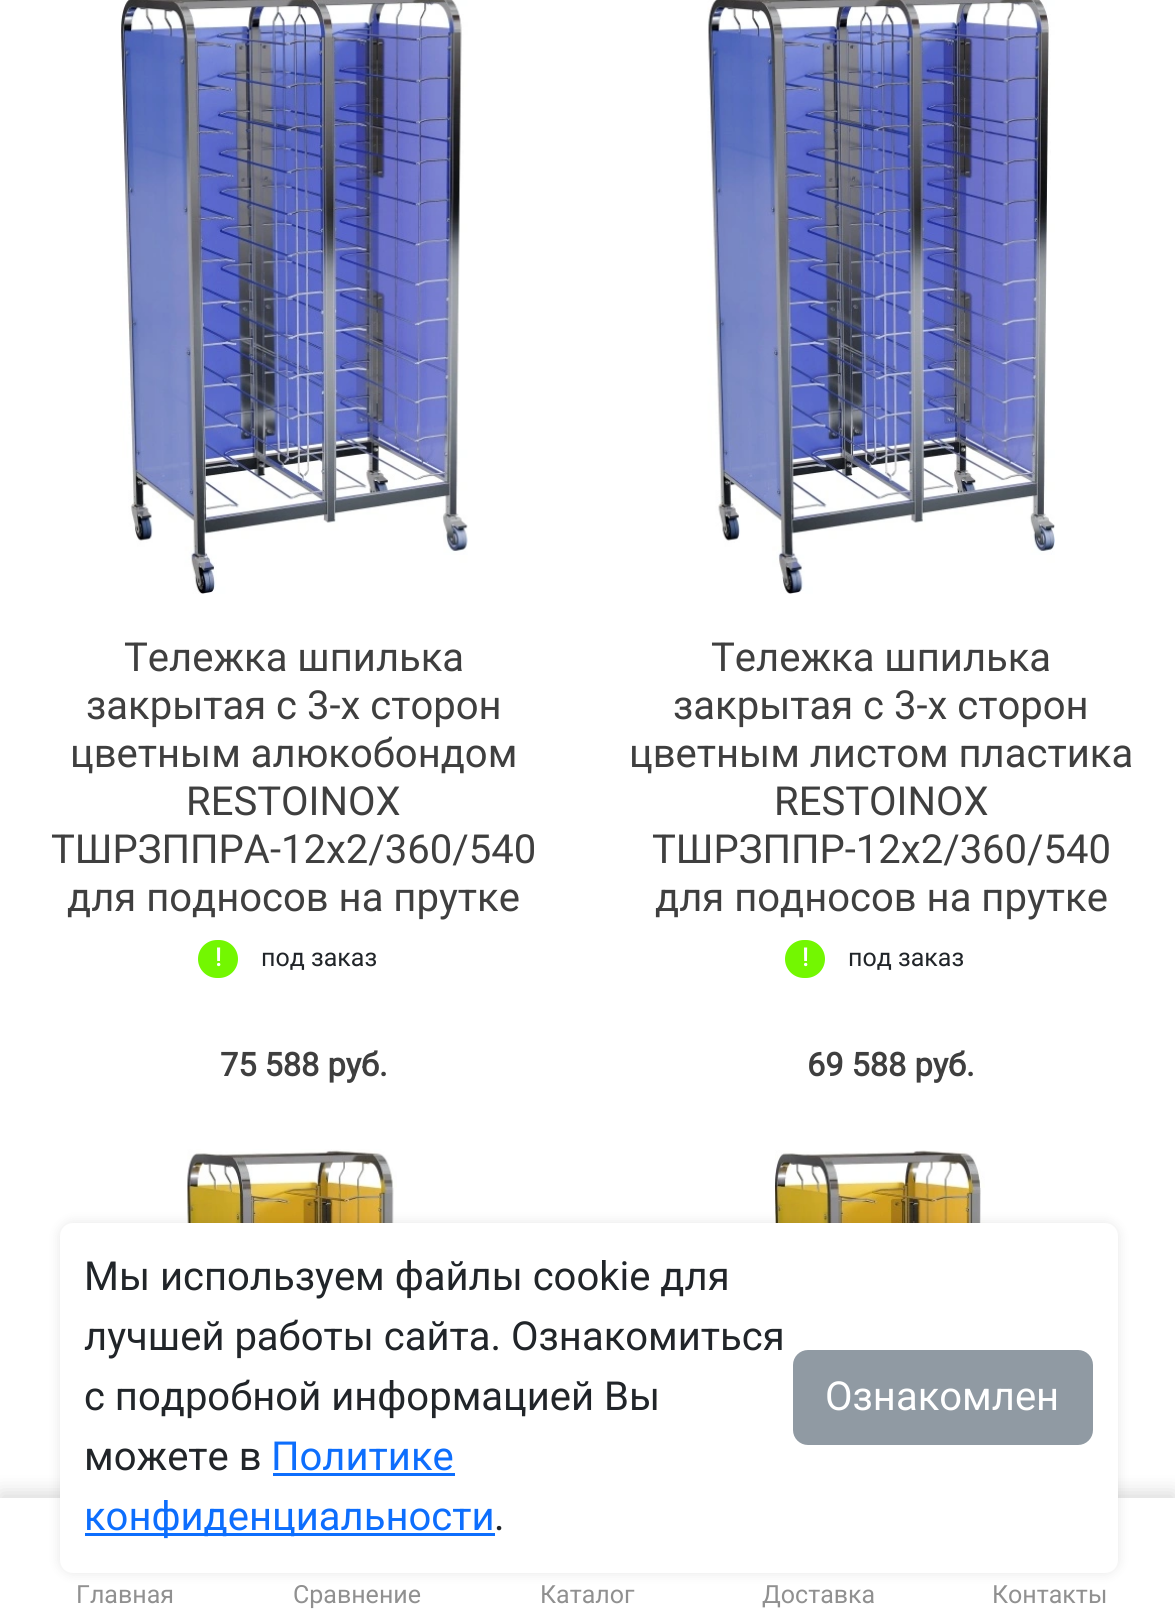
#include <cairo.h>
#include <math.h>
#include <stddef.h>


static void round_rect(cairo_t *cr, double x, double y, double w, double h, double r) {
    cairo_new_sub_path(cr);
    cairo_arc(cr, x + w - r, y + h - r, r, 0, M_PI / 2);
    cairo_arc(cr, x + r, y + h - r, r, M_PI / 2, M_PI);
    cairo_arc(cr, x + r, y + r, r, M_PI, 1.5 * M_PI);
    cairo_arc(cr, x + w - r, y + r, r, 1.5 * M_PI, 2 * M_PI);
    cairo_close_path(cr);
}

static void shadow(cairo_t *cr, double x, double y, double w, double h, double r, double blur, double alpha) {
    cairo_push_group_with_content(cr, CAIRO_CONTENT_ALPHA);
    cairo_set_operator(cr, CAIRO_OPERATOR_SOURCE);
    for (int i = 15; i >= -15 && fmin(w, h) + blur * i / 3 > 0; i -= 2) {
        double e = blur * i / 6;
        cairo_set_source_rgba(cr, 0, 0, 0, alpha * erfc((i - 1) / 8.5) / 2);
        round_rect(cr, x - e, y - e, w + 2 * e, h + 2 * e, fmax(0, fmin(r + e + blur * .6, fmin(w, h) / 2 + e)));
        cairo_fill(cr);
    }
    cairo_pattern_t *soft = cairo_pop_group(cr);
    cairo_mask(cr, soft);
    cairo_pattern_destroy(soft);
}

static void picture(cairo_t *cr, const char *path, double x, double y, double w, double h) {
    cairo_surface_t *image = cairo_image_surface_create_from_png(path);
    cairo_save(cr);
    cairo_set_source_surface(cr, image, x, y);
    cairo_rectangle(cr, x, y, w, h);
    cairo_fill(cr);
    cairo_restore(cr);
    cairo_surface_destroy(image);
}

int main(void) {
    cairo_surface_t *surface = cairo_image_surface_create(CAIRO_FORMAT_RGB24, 1175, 1622);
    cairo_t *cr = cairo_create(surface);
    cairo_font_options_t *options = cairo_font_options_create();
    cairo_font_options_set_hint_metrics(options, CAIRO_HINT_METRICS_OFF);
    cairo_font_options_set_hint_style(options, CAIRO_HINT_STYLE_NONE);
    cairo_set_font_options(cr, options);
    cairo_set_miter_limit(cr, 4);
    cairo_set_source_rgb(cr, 1, 1, 1);
    cairo_paint(cr);
    picture(cr, "img1.png", 120, 0, 348, 594);
    cairo_select_font_face(cr, "Roboto", CAIRO_FONT_SLANT_NORMAL, CAIRO_FONT_WEIGHT_NORMAL);
    cairo_set_font_size(cr, 40);
    cairo_set_source_rgb(cr, 0.247, 0.247, 0.247);
    cairo_move_to(cr, 124, 671);
    cairo_show_text(cr, "Тележка шпилька");
    cairo_move_to(cr, 86, 719);
    cairo_show_text(cr, "закрытая с 3-х сторон");
    cairo_move_to(cr, 70, 767);
    cairo_show_text(cr, "цветным алюкобондом");
    cairo_move_to(cr, 186, 815);
    cairo_show_text(cr, "RESTOINOX");
    cairo_move_to(cr, 51, 863);
    cairo_show_text(cr, "ТШРЗППРА-12х2/360/540");
    cairo_move_to(cr, 67, 911);
    cairo_show_text(cr, "для подносов на прутке");
    cairo_set_source_rgb(cr, 0.451, 0.965, 0.004);
    round_rect(cr, 198, 940, 40, 38, 19);
    cairo_fill(cr);
    cairo_select_font_face(cr, "Roboto", CAIRO_FONT_SLANT_NORMAL, CAIRO_FONT_WEIGHT_BOLD);
    cairo_set_font_size(cr, 25);
    cairo_set_source_rgb(cr, 1, 1, 1);
    cairo_move_to(cr, 215, 966);
    cairo_show_text(cr, "!");
    cairo_select_font_face(cr, "Roboto", CAIRO_FONT_SLANT_NORMAL, CAIRO_FONT_WEIGHT_NORMAL);
    cairo_set_source_rgb(cr, 0.129, 0.145, 0.161);
    cairo_move_to(cr, 261, 966);
    cairo_show_text(cr, "под заказ");
    cairo_select_font_face(cr, "Roboto", CAIRO_FONT_SLANT_NORMAL, CAIRO_FONT_WEIGHT_BOLD);
    cairo_set_font_size(cr, 32.5);
    cairo_set_source_rgb(cr, 0.247, 0.247, 0.247);
    cairo_move_to(cr, 220, 1076);
    cairo_show_text(cr, "75 588 руб.");
    picture(cr, "img2.png", 707, 0, 348, 594);
    cairo_select_font_face(cr, "Roboto", CAIRO_FONT_SLANT_NORMAL, CAIRO_FONT_WEIGHT_NORMAL);
    cairo_set_font_size(cr, 40);
    cairo_move_to(cr, 711, 671);
    cairo_show_text(cr, "Тележка шпилька");
    cairo_move_to(cr, 673, 719);
    cairo_show_text(cr, "закрытая с 3-х сторон");
    cairo_move_to(cr, 629, 767);
    cairo_show_text(cr, "цветным листом пластика");
    cairo_move_to(cr, 774, 815);
    cairo_show_text(cr, "RESTOINOX");
    cairo_move_to(cr, 652, 863);
    cairo_show_text(cr, "ТШРЗППР-12х2/360/540");
    cairo_move_to(cr, 655, 911);
    cairo_show_text(cr, "для подносов на прутке");
    cairo_set_source_rgb(cr, 0.451, 0.965, 0.004);
    round_rect(cr, 785, 940, 40, 38, 19);
    cairo_fill(cr);
    cairo_select_font_face(cr, "Roboto", CAIRO_FONT_SLANT_NORMAL, CAIRO_FONT_WEIGHT_BOLD);
    cairo_set_font_size(cr, 25);
    cairo_set_source_rgb(cr, 1, 1, 1);
    cairo_move_to(cr, 802, 966);
    cairo_show_text(cr, "!");
    cairo_select_font_face(cr, "Roboto", CAIRO_FONT_SLANT_NORMAL, CAIRO_FONT_WEIGHT_NORMAL);
    cairo_set_source_rgb(cr, 0.129, 0.145, 0.161);
    cairo_move_to(cr, 848, 966);
    cairo_show_text(cr, "под заказ");
    cairo_select_font_face(cr, "Roboto", CAIRO_FONT_SLANT_NORMAL, CAIRO_FONT_WEIGHT_BOLD);
    cairo_set_font_size(cr, 32.5);
    cairo_set_source_rgb(cr, 0.247, 0.247, 0.247);
    cairo_move_to(cr, 807, 1076);
    cairo_show_text(cr, "69 588 руб.");
    picture(cr, "img3.png", 187, 1149, 210, 74);
    picture(cr, "img4.png", 775, 1150, 210, 73);
    cairo_set_source_rgb(cr, 0, 0, 0);
    shadow(cr, 0, 1493, 1175, 125, 0, 10, 0.15);
    cairo_set_source_rgb(cr, 1, 1, 1);
    cairo_rectangle(cr, 0, 1498, 1175, 124);
    cairo_fill(cr);
    cairo_set_source_rgb(cr, 0, 0, 0);
    shadow(cr, 60, 1223, 1058, 350, 13, 6, 0.1);
    cairo_set_source_rgb(cr, 1, 1, 1);
    round_rect(cr, 60, 1223, 1058, 350, 13);
    cairo_fill(cr);
    cairo_select_font_face(cr, "Roboto", CAIRO_FONT_SLANT_NORMAL, CAIRO_FONT_WEIGHT_NORMAL);
    cairo_set_font_size(cr, 40);
    cairo_set_source_rgb(cr, 0.129, 0.145, 0.161);
    cairo_move_to(cr, 84, 1290);
    cairo_show_text(cr, "Мы используем файлы cookie для");
    cairo_move_to(cr, 84, 1350);
    cairo_show_text(cr, "лучшей работы сайта. Ознакомиться");
    cairo_move_to(cr, 84, 1410);
    cairo_show_text(cr, "с подробной информацией Вы");
    cairo_move_to(cr, 84, 1470);
    cairo_show_text(cr, "можете в");
    cairo_set_source_rgb(cr, 0.051, 0.431, 0.992);
    cairo_move_to(cr, 271, 1470);
    cairo_show_text(cr, "Политике");
    cairo_rectangle(cr, 273, 1473, 182, 3);
    cairo_fill(cr);
    cairo_rectangle(cr, 85, 1533, 410, 3);
    cairo_fill(cr);
    cairo_move_to(cr, 84, 1530);
    cairo_show_text(cr, "конфиденциальности");
    cairo_set_source_rgb(cr, 0.129, 0.145, 0.161);
    cairo_move_to(cr, 494, 1530);
    cairo_show_text(cr, ".");
    cairo_set_source_rgb(cr, 0.565, 0.604, 0.639);
    round_rect(cr, 794.5, 1351.5, 297, 92, 13.5);
    cairo_fill_preserve(cr);
    cairo_set_line_width(cr, 3);
    cairo_stroke(cr);
    cairo_set_source_rgb(cr, 1, 1, 1);
    cairo_move_to(cr, 825, 1410);
    cairo_show_text(cr, "Ознакомлен");
    cairo_set_font_size(cr, 25);
    cairo_set_source_rgb(cr, 0.565, 0.565, 0.565);
    cairo_move_to(cr, 76, 1603);
    cairo_show_text(cr, "Главная");
    cairo_move_to(cr, 293, 1603);
    cairo_show_text(cr, "Сравнение");
    cairo_move_to(cr, 540, 1603);
    cairo_show_text(cr, "Каталог");
    cairo_move_to(cr, 762, 1603);
    cairo_show_text(cr, "Доставка");
    cairo_move_to(cr, 992, 1603);
    cairo_show_text(cr, "Контакты");
    cairo_surface_write_to_png(surface, "page.png");
    cairo_font_options_destroy(options);
    cairo_destroy(cr);
    cairo_surface_destroy(surface);
    return 0;
}
